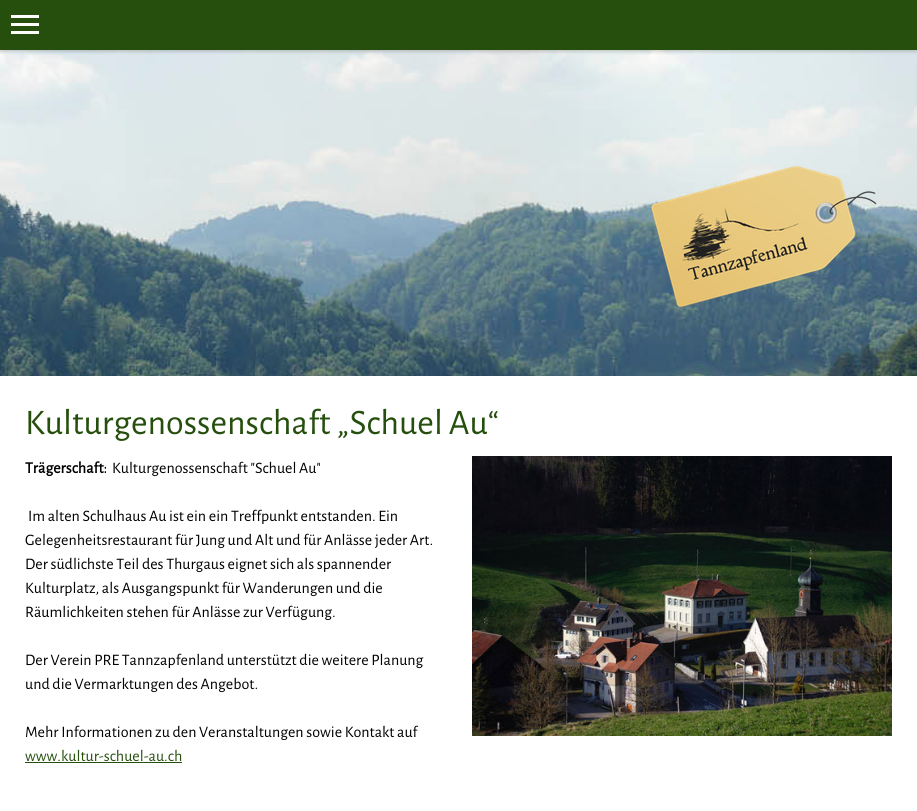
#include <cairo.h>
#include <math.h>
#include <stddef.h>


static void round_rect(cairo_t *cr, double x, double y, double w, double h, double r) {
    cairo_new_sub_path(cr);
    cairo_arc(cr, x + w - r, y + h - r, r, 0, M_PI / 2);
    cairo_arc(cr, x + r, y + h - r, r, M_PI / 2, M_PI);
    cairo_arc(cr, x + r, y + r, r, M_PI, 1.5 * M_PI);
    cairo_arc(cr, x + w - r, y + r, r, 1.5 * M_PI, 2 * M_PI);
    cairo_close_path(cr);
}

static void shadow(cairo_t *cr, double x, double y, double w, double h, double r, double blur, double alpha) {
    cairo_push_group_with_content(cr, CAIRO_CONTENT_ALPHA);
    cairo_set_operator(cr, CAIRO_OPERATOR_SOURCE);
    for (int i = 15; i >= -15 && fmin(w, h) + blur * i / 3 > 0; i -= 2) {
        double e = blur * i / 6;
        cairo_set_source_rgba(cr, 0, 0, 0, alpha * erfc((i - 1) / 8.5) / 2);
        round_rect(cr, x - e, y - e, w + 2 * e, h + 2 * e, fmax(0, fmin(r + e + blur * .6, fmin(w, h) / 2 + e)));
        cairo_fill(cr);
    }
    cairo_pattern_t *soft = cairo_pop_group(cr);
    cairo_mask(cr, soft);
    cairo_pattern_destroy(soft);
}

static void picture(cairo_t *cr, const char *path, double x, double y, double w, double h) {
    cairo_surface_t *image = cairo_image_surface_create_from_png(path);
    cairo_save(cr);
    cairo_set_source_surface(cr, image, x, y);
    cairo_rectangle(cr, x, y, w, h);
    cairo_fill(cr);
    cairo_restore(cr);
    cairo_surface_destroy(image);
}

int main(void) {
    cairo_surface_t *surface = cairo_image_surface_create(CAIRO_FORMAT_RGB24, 917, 811);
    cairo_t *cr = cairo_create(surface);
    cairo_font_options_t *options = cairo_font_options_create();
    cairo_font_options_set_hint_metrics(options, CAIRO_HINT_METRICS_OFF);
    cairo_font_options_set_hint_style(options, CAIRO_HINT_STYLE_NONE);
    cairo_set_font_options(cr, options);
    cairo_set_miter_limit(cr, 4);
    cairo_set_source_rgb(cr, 1, 1, 1);
    cairo_paint(cr);
    picture(cr, "img1.png", 0, 50, 917, 326);
    cairo_set_source_rgb(cr, 0, 0, 0);
    shadow(cr, 0, 2, 917, 50, 0, 1.5, 0.16);
    cairo_set_source_rgb(cr, 0.149, 0.31, 0.055);
    cairo_rectangle(cr, 0, 0, 917, 50);
    cairo_fill(cr);
    cairo_set_source_rgb(cr, 1, 1, 1);
    cairo_rectangle(cr, 11, 23, 28, 3);
    cairo_fill(cr);
    cairo_rectangle(cr, 11, 15, 28, 3);
    cairo_fill(cr);
    cairo_rectangle(cr, 11, 31, 28, 3);
    cairo_fill(cr);
    picture(cr, "img2.png", 651, 166, 226, 142);
    cairo_select_font_face(cr, "Alegreya Sans", CAIRO_FONT_SLANT_NORMAL, CAIRO_FONT_WEIGHT_NORMAL);
    cairo_set_font_size(cr, 36);
    cairo_set_source_rgb(cr, 0.149, 0.31, 0.055);
    cairo_move_to(cr, 25, 434);
    cairo_show_text(cr, "Kulturgenossenschaft „Schuel Au“");
    cairo_select_font_face(cr, "Alegreya Sans", CAIRO_FONT_SLANT_NORMAL, CAIRO_FONT_WEIGHT_BOLD);
    cairo_set_font_size(cr, 16);
    cairo_set_source_rgb(cr, 0, 0, 0);
    cairo_move_to(cr, 25, 473);
    cairo_show_text(cr, "Trägerschaft:");
    cairo_select_font_face(cr, "Alegreya Sans", CAIRO_FONT_SLANT_NORMAL, CAIRO_FONT_WEIGHT_NORMAL);
    cairo_move_to(cr, 112, 473);
    cairo_show_text(cr, "Kulturgenossenschaft \"Schuel Au\"");
    cairo_move_to(cr, 28, 521);
    cairo_show_text(cr, "Im alten Schulhaus Au ist ein ein Treffpunkt entstanden. Ein");
    cairo_move_to(cr, 25, 545);
    cairo_show_text(cr, "Gelegenheitsrestaurant für Jung und Alt und für Anlässe jeder Art.");
    cairo_move_to(cr, 25, 569);
    cairo_show_text(cr, "Der südlichste Teil des Thurgaus eignet sich als spannender");
    cairo_move_to(cr, 25, 593);
    cairo_show_text(cr, "Kulturplatz, als Ausgangspunkt für Wanderungen und die");
    cairo_move_to(cr, 25, 617);
    cairo_show_text(cr, "Räumlichkeiten stehen für Anlässe zur Verfügung.");
    cairo_move_to(cr, 25, 665);
    cairo_show_text(cr, "Der Verein PRE Tannzapfenland unterstützt die weitere Planung");
    cairo_move_to(cr, 25, 689);
    cairo_show_text(cr, "und die Vermarktungen des Angebot.");
    cairo_move_to(cr, 25, 737);
    cairo_show_text(cr, "Mehr Informationen zu den Veranstaltungen sowie Kontakt auf");
    cairo_set_source_rgb(cr, 0.149, 0.31, 0.055);
    cairo_move_to(cr, 25, 761);
    cairo_show_text(cr, "www.kultur-schuel-au.ch");
    cairo_rectangle(cr, 25, 762, 157, 1);
    cairo_fill(cr);
    picture(cr, "img3.png", 472, 456, 420, 280);
    cairo_surface_write_to_png(surface, "page.png");
    cairo_font_options_destroy(options);
    cairo_destroy(cr);
    cairo_surface_destroy(surface);
    return 0;
}
